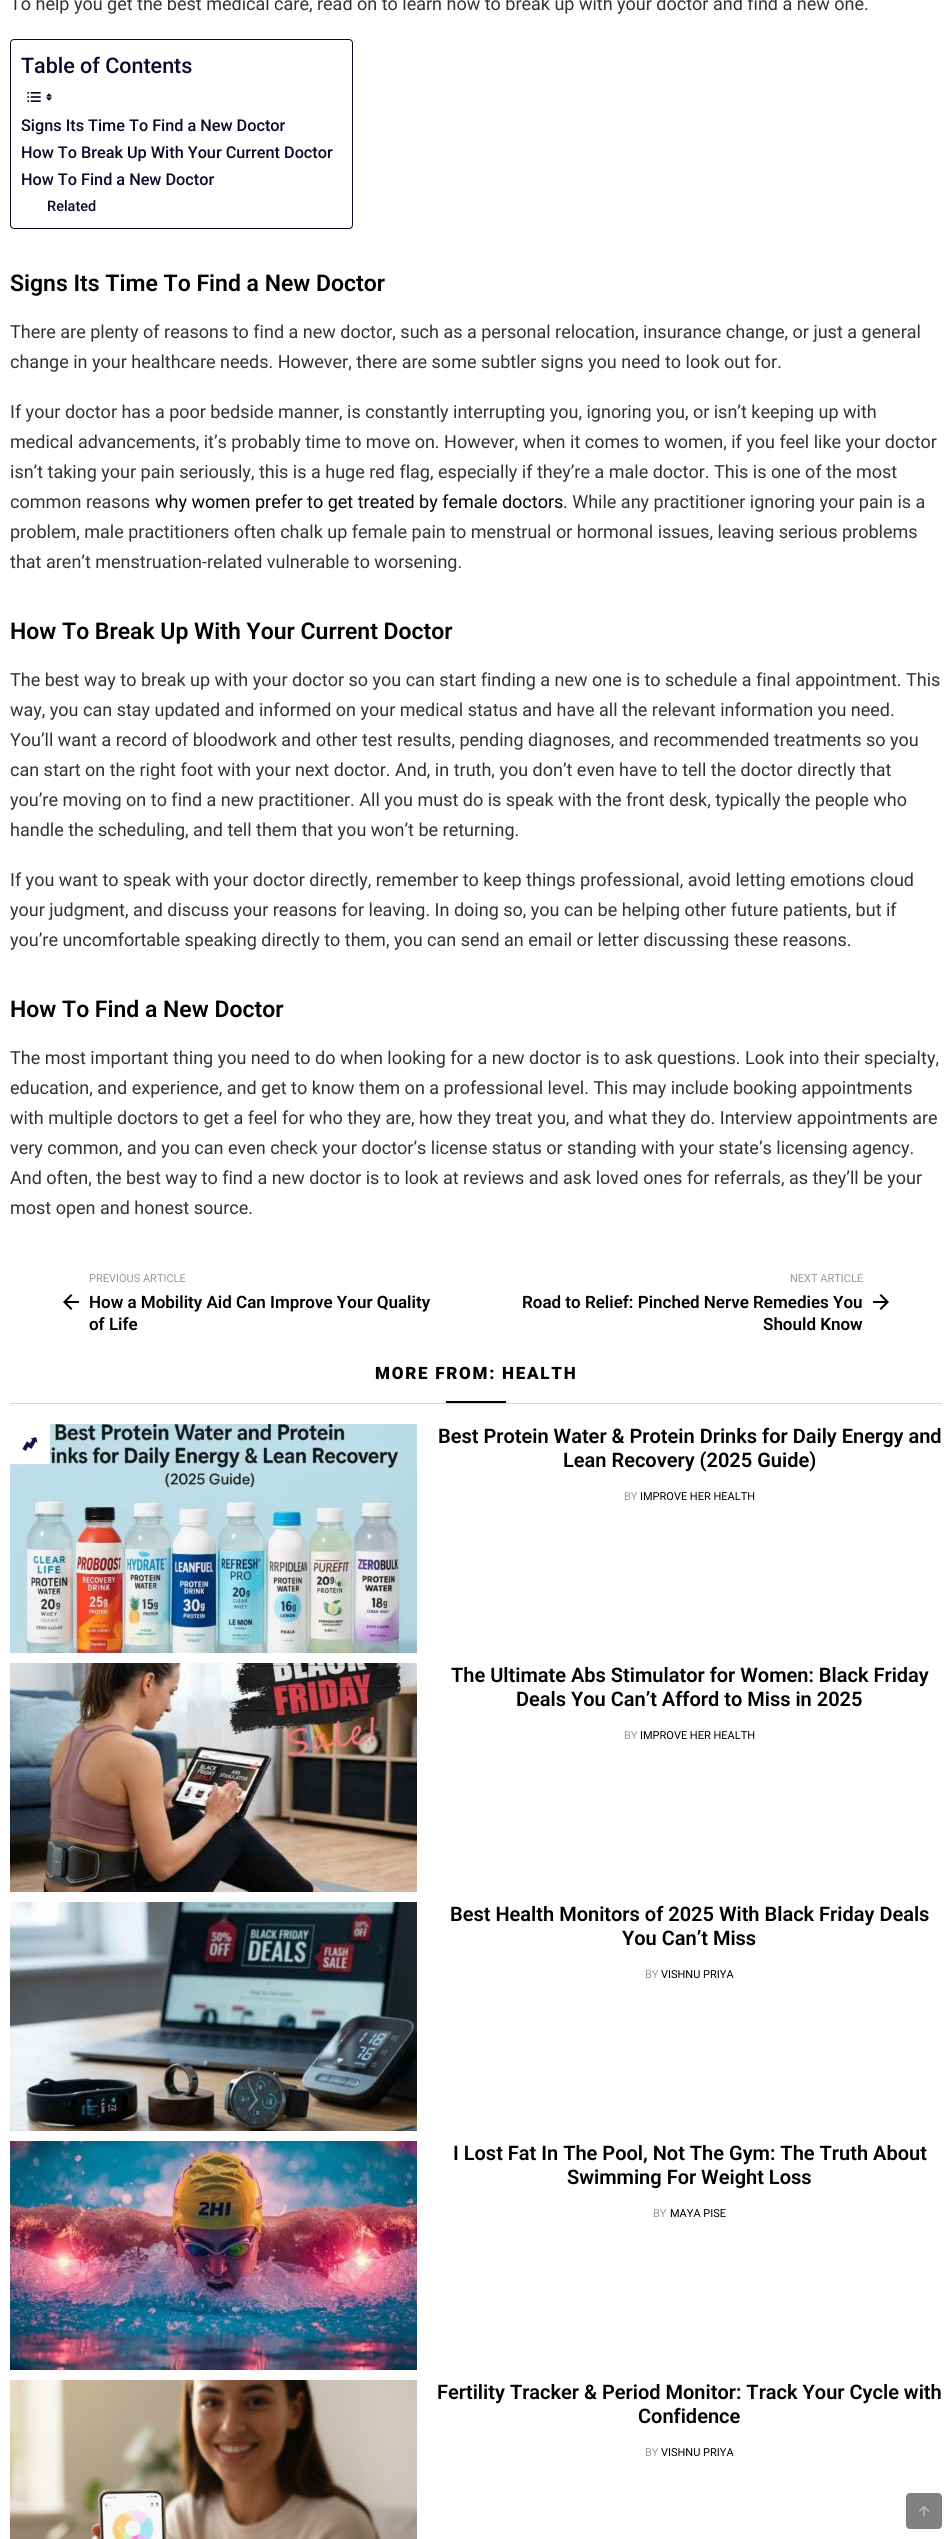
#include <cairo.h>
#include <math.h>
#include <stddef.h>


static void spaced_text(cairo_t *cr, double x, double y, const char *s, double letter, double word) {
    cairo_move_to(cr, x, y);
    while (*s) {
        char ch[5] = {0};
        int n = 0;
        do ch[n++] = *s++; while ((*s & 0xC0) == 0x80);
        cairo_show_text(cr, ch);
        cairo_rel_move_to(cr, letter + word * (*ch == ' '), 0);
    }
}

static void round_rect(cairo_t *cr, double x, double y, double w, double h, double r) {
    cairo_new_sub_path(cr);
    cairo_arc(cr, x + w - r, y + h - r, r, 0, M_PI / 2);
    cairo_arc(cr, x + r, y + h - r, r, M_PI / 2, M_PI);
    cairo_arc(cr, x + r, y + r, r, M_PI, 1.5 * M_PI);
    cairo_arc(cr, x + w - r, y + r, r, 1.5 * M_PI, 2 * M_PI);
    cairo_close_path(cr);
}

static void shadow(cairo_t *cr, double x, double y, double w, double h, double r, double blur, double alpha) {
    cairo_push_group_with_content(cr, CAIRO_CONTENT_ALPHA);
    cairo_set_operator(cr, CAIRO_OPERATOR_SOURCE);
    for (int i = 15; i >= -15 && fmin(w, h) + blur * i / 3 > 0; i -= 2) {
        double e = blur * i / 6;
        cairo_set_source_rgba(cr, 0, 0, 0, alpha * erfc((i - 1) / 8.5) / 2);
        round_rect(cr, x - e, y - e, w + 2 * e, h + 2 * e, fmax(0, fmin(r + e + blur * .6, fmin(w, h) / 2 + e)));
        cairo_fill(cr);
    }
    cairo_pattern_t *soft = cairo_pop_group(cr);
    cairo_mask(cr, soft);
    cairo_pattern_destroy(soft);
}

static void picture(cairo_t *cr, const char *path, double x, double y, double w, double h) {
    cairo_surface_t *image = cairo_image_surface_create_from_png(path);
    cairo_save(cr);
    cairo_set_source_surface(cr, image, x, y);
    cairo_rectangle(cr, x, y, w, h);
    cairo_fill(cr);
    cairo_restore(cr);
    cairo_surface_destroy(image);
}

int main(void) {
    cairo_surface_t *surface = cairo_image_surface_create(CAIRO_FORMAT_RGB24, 952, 2539);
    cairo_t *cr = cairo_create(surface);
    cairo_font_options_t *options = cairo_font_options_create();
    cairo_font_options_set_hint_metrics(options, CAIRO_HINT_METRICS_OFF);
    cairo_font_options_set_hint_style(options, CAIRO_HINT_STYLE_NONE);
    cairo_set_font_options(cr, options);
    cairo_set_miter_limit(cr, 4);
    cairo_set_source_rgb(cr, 1, 1, 1);
    cairo_paint(cr);
    cairo_select_font_face(cr, "Roboto", CAIRO_FONT_SLANT_NORMAL, CAIRO_FONT_WEIGHT_NORMAL);
    cairo_set_font_size(cr, 18);
    cairo_set_source_rgb(cr, 0.2, 0.2, 0.2);
    cairo_move_to(cr, 10, 10);
    cairo_show_text(cr, "To help you get the best medical care, read on to learn how to break up with your doctor and find a new one.");
    cairo_set_source_rgb(cr, 0, 0, 0);
    shadow(cr, 10, 40, 343, 190, 4, 0.5, 0.05);
    cairo_set_source_rgb(cr, 1, 1, 1);
    round_rect(cr, 10.5, 39.5, 342, 189, 3.5);
    cairo_fill_preserve(cr);
    cairo_set_source_rgb(cr, 0.067, 0.027, 0.161);
    cairo_set_line_width(cr, 1);
    cairo_stroke(cr);
    cairo_select_font_face(cr, "Roboto Medium", CAIRO_FONT_SLANT_NORMAL, CAIRO_FONT_WEIGHT_NORMAL);
    cairo_set_font_size(cr, 21.5);
    cairo_move_to(cr, 21, 73);
    cairo_show_text(cr, "Table of Contents");
    picture(cr, "img1.png", 27, 92, 14, 10);
    picture(cr, "img2.png", 46, 93, 6, 8);
    cairo_set_font_size(cr, 16.25);
    cairo_move_to(cr, 21, 131);
    cairo_show_text(cr, "Signs Its Time To Find a New Doctor");
    cairo_move_to(cr, 21, 158);
    cairo_show_text(cr, "How To Break Up With Your Current Doctor");
    cairo_move_to(cr, 21, 185);
    cairo_show_text(cr, "How To Find a New Doctor");
    cairo_set_font_size(cr, 14.5);
    cairo_move_to(cr, 47, 211);
    cairo_show_text(cr, "Related");
    cairo_select_font_face(cr, "Roboto SemiBold", CAIRO_FONT_SLANT_NORMAL, CAIRO_FONT_WEIGHT_NORMAL);
    cairo_set_font_size(cr, 23);
    cairo_set_source_rgb(cr, 0, 0, 0);
    cairo_move_to(cr, 10, 291);
    cairo_show_text(cr, "Signs Its Time To Find a New Doctor");
    cairo_select_font_face(cr, "Roboto", CAIRO_FONT_SLANT_NORMAL, CAIRO_FONT_WEIGHT_NORMAL);
    cairo_set_font_size(cr, 18);
    cairo_set_source_rgb(cr, 0.2, 0.2, 0.2);
    cairo_move_to(cr, 10, 338);
    cairo_show_text(cr, "There are plenty of reasons to find a new doctor, such as a personal relocation, insurance change, or just a general");
    cairo_move_to(cr, 10, 368);
    cairo_show_text(cr, "change in your healthcare needs. However, there are some subtler signs you need to look out for.");
    cairo_move_to(cr, 10, 418);
    cairo_show_text(cr, "If your doctor has a poor bedside manner, is constantly interrupting you, ignoring you, or isn’t keeping up with");
    cairo_move_to(cr, 10, 448);
    cairo_show_text(cr, "medical advancements, it’s probably time to move on. However, when it comes to women, if you feel like your doctor");
    cairo_move_to(cr, 10, 478);
    cairo_show_text(cr, "isn’t taking your pain seriously, this is a huge red flag, especially if they’re a male doctor. This is one of the most");
    cairo_move_to(cr, 10, 508);
    cairo_show_text(cr, "common reasons");
    cairo_set_source_rgb(cr, 0.012, 0.004, 0.027);
    cairo_move_to(cr, 155, 508);
    cairo_show_text(cr, "why women prefer to get treated by female doctors");
    cairo_set_source_rgb(cr, 0.2, 0.2, 0.2);
    cairo_move_to(cr, 563, 508);
    cairo_show_text(cr, ". While any practitioner ignoring your pain is a");
    cairo_move_to(cr, 10, 538);
    cairo_show_text(cr, "problem, male practitioners often chalk up female pain to menstrual or hormonal issues, leaving serious problems");
    cairo_move_to(cr, 10, 568);
    cairo_show_text(cr, "that aren’t menstruation-related vulnerable to worsening.");
    cairo_select_font_face(cr, "Roboto SemiBold", CAIRO_FONT_SLANT_NORMAL, CAIRO_FONT_WEIGHT_NORMAL);
    cairo_set_font_size(cr, 23);
    cairo_set_source_rgb(cr, 0, 0, 0);
    cairo_move_to(cr, 10, 639);
    cairo_show_text(cr, "How To Break Up With Your Current Doctor");
    cairo_select_font_face(cr, "Roboto", CAIRO_FONT_SLANT_NORMAL, CAIRO_FONT_WEIGHT_NORMAL);
    cairo_set_font_size(cr, 18);
    cairo_set_source_rgb(cr, 0.2, 0.2, 0.2);
    cairo_move_to(cr, 10, 686);
    cairo_show_text(cr, "The best way to break up with your doctor so you can start finding a new one is to schedule a final appointment. This");
    cairo_move_to(cr, 10, 716);
    cairo_show_text(cr, "way, you can stay updated and informed on your medical status and have all the relevant information you need.");
    cairo_move_to(cr, 10, 746);
    cairo_show_text(cr, "You’ll want a record of bloodwork and other test results, pending diagnoses, and recommended treatments so you");
    cairo_move_to(cr, 10, 776);
    cairo_show_text(cr, "can start on the right foot with your next doctor. And, in truth, you don’t even have to tell the doctor directly that");
    cairo_move_to(cr, 10, 806);
    cairo_show_text(cr, "you’re moving on to find a new practitioner. All you must do is speak with the front desk, typically the people who");
    cairo_move_to(cr, 10, 836);
    cairo_show_text(cr, "handle the scheduling, and tell them that you won’t be returning.");
    cairo_move_to(cr, 10, 886);
    cairo_show_text(cr, "If you want to speak with your doctor directly, remember to keep things professional, avoid letting emotions cloud");
    cairo_move_to(cr, 10, 916);
    cairo_show_text(cr, "your judgment, and discuss your reasons for leaving. In doing so, you can be helping other future patients, but if");
    cairo_move_to(cr, 10, 946);
    cairo_show_text(cr, "you’re uncomfortable speaking directly to them, you can send an email or letter discussing these reasons.");
    cairo_select_font_face(cr, "Roboto SemiBold", CAIRO_FONT_SLANT_NORMAL, CAIRO_FONT_WEIGHT_NORMAL);
    cairo_set_font_size(cr, 23);
    cairo_set_source_rgb(cr, 0, 0, 0);
    cairo_move_to(cr, 10, 1017);
    cairo_show_text(cr, "How To Find a New Doctor");
    cairo_select_font_face(cr, "Roboto", CAIRO_FONT_SLANT_NORMAL, CAIRO_FONT_WEIGHT_NORMAL);
    cairo_set_font_size(cr, 18);
    cairo_set_source_rgb(cr, 0.2, 0.2, 0.2);
    cairo_move_to(cr, 10, 1064);
    cairo_show_text(cr, "The most important thing you need to do when looking for a new doctor is to ask questions. Look into their specialty,");
    cairo_move_to(cr, 10, 1094);
    cairo_show_text(cr, "education, and experience, and get to know them on a professional level. This may include booking appointments");
    cairo_move_to(cr, 10, 1124);
    cairo_show_text(cr, "with multiple doctors to get a feel for who they are, how they treat you, and what they do. Interview appointments are");
    cairo_move_to(cr, 10, 1154);
    cairo_show_text(cr, "very common, and you can even check your doctor’s license status or standing with your state’s licensing agency.");
    cairo_move_to(cr, 10, 1184);
    cairo_show_text(cr, "And often, the best way to find a new doctor is to look at reviews and ask loved ones for referrals, as they’ll be your");
    cairo_move_to(cr, 10, 1214);
    cairo_show_text(cr, "most open and honest source.");
    cairo_set_font_size(cr, 11);
    cairo_set_source_rgb(cr, 0.6, 0.6, 0.6);
    cairo_move_to(cr, 89, 1282);
    cairo_show_text(cr, "PREVIOUS ARTICLE");
    picture(cr, "img3.png", 63, 1294, 17, 16);
    cairo_select_font_face(cr, "Roboto SemiBold", CAIRO_FONT_SLANT_NORMAL, CAIRO_FONT_WEIGHT_NORMAL);
    cairo_set_font_size(cr, 17);
    cairo_set_source_rgb(cr, 0, 0, 0);
    cairo_move_to(cr, 89, 1308);
    cairo_show_text(cr, "How a Mobility Aid Can Improve Your Quality");
    cairo_move_to(cr, 89, 1330);
    cairo_show_text(cr, "of Life");
    cairo_select_font_face(cr, "Roboto", CAIRO_FONT_SLANT_NORMAL, CAIRO_FONT_WEIGHT_NORMAL);
    cairo_set_font_size(cr, 11);
    cairo_set_source_rgb(cr, 0.6, 0.6, 0.6);
    cairo_move_to(cr, 790, 1282);
    cairo_show_text(cr, "NEXT ARTICLE");
    cairo_select_font_face(cr, "Roboto SemiBold", CAIRO_FONT_SLANT_NORMAL, CAIRO_FONT_WEIGHT_NORMAL);
    cairo_set_font_size(cr, 17);
    cairo_set_source_rgb(cr, 0, 0, 0);
    cairo_move_to(cr, 522, 1308);
    cairo_show_text(cr, "Road to Relief: Pinched Nerve Remedies You");
    picture(cr, "img4.png", 873, 1294, 16, 16);
    cairo_move_to(cr, 763, 1330);
    cairo_show_text(cr, "Should Know");
    cairo_select_font_face(cr, "Roboto Black", CAIRO_FONT_SLANT_NORMAL, CAIRO_FONT_WEIGHT_NORMAL);
    spaced_text(cr, 375, 1379, "MORE FROM:", 1.75, 0);
    cairo_set_source_rgb(cr, 0.012, 0.004, 0.027);
    spaced_text(cr, 502, 1379, "HEALTH", 1.75, 0);
    cairo_set_source_rgb(cr, 0, 0, 0);
    cairo_rectangle(cr, 446, 1401, 60, 2);
    cairo_fill(cr);
    cairo_set_source_rgb(cr, 0.831, 0.831, 0.831);
    cairo_rectangle(cr, 10, 1403, 932, 1);
    cairo_fill(cr);
    picture(cr, "img5.png", 10, 1424, 407, 229);
    cairo_set_source_rgb(cr, 1, 1, 1);
    cairo_rectangle(cr, 10, 1424, 40, 40);
    cairo_fill(cr);
    picture(cr, "img6.png", 22, 1437, 16, 14);
    cairo_select_font_face(cr, "Roboto SemiBold", CAIRO_FONT_SLANT_NORMAL, CAIRO_FONT_WEIGHT_NORMAL);
    cairo_set_font_size(cr, 20);
    cairo_set_source_rgb(cr, 0, 0, 0);
    cairo_move_to(cr, 438, 1443);
    cairo_show_text(cr, "Best Protein Water & Protein Drinks for Daily Energy and");
    cairo_move_to(cr, 563, 1467);
    cairo_show_text(cr, "Lean Recovery (2025 Guide)");
    cairo_select_font_face(cr, "Roboto", CAIRO_FONT_SLANT_NORMAL, CAIRO_FONT_WEIGHT_NORMAL);
    cairo_set_font_size(cr, 11);
    cairo_set_source_rgb(cr, 0.6, 0.6, 0.6);
    cairo_move_to(cr, 624, 1500);
    cairo_show_text(cr, "BY");
    cairo_set_source_rgb(cr, 0, 0, 0);
    cairo_move_to(cr, 640, 1500);
    cairo_show_text(cr, "IMPROVE HER HEALTH");
    picture(cr, "img7.png", 10, 1663, 407, 229);
    cairo_select_font_face(cr, "Roboto SemiBold", CAIRO_FONT_SLANT_NORMAL, CAIRO_FONT_WEIGHT_NORMAL);
    cairo_set_font_size(cr, 20);
    cairo_move_to(cr, 451, 1682);
    cairo_show_text(cr, "The Ultimate Abs Stimulator for Women: Black Friday");
    cairo_move_to(cr, 516, 1706);
    cairo_show_text(cr, "Deals You Can’t Afford to Miss in 2025");
    cairo_select_font_face(cr, "Roboto", CAIRO_FONT_SLANT_NORMAL, CAIRO_FONT_WEIGHT_NORMAL);
    cairo_set_font_size(cr, 11);
    cairo_set_source_rgb(cr, 0.6, 0.6, 0.6);
    cairo_move_to(cr, 624, 1739);
    cairo_show_text(cr, "BY");
    cairo_set_source_rgb(cr, 0, 0, 0);
    cairo_move_to(cr, 640, 1739);
    cairo_show_text(cr, "IMPROVE HER HEALTH");
    picture(cr, "img8.png", 10, 1902, 407, 229);
    cairo_select_font_face(cr, "Roboto SemiBold", CAIRO_FONT_SLANT_NORMAL, CAIRO_FONT_WEIGHT_NORMAL);
    cairo_set_font_size(cr, 20);
    cairo_move_to(cr, 450, 1921);
    cairo_show_text(cr, "Best Health Monitors of 2025 With Black Friday Deals");
    cairo_move_to(cr, 622, 1945);
    cairo_show_text(cr, "You Can’t Miss");
    cairo_select_font_face(cr, "Roboto", CAIRO_FONT_SLANT_NORMAL, CAIRO_FONT_WEIGHT_NORMAL);
    cairo_set_font_size(cr, 11);
    cairo_set_source_rgb(cr, 0.6, 0.6, 0.6);
    cairo_move_to(cr, 645, 1978);
    cairo_show_text(cr, "BY");
    cairo_set_source_rgb(cr, 0, 0, 0);
    cairo_move_to(cr, 661, 1978);
    cairo_show_text(cr, "VISHNU PRIYA");
    picture(cr, "img9.png", 10, 2141, 407, 229);
    cairo_select_font_face(cr, "Roboto SemiBold", CAIRO_FONT_SLANT_NORMAL, CAIRO_FONT_WEIGHT_NORMAL);
    cairo_set_font_size(cr, 20);
    cairo_move_to(cr, 453, 2160);
    cairo_show_text(cr, "I Lost Fat In The Pool, Not The Gym: The Truth About");
    cairo_move_to(cr, 567, 2184);
    cairo_show_text(cr, "Swimming For Weight Loss");
    cairo_select_font_face(cr, "Roboto", CAIRO_FONT_SLANT_NORMAL, CAIRO_FONT_WEIGHT_NORMAL);
    cairo_set_font_size(cr, 11);
    cairo_set_source_rgb(cr, 0.6, 0.6, 0.6);
    cairo_move_to(cr, 653, 2217);
    cairo_show_text(cr, "BY");
    cairo_set_source_rgb(cr, 0, 0, 0);
    cairo_move_to(cr, 670, 2217);
    cairo_show_text(cr, "MAYA PISE");
    picture(cr, "img10.png", 10, 2380, 407, 159);
    cairo_select_font_face(cr, "Roboto SemiBold", CAIRO_FONT_SLANT_NORMAL, CAIRO_FONT_WEIGHT_NORMAL);
    cairo_set_font_size(cr, 20);
    cairo_move_to(cr, 437, 2399);
    cairo_show_text(cr, "Fertility Tracker & Period Monitor: Track Your Cycle with");
    cairo_move_to(cr, 638, 2423);
    cairo_show_text(cr, "Confidence");
    cairo_select_font_face(cr, "Roboto", CAIRO_FONT_SLANT_NORMAL, CAIRO_FONT_WEIGHT_NORMAL);
    cairo_set_font_size(cr, 11);
    cairo_set_source_rgb(cr, 0.6, 0.6, 0.6);
    cairo_move_to(cr, 645, 2456);
    cairo_show_text(cr, "BY");
    cairo_set_source_rgb(cr, 0, 0, 0);
    cairo_move_to(cr, 661, 2456);
    cairo_show_text(cr, "VISHNU PRIYA");
    cairo_set_source_rgb(cr, 0.502, 0.502, 0.502);
    round_rect(cr, 906, 2493, 36, 36, 4);
    cairo_fill(cr);
    picture(cr, "img11.png", 919, 2506, 11, 11);
    cairo_surface_write_to_png(surface, "page.png");
    cairo_font_options_destroy(options);
    cairo_destroy(cr);
    cairo_surface_destroy(surface);
    return 0;
}
